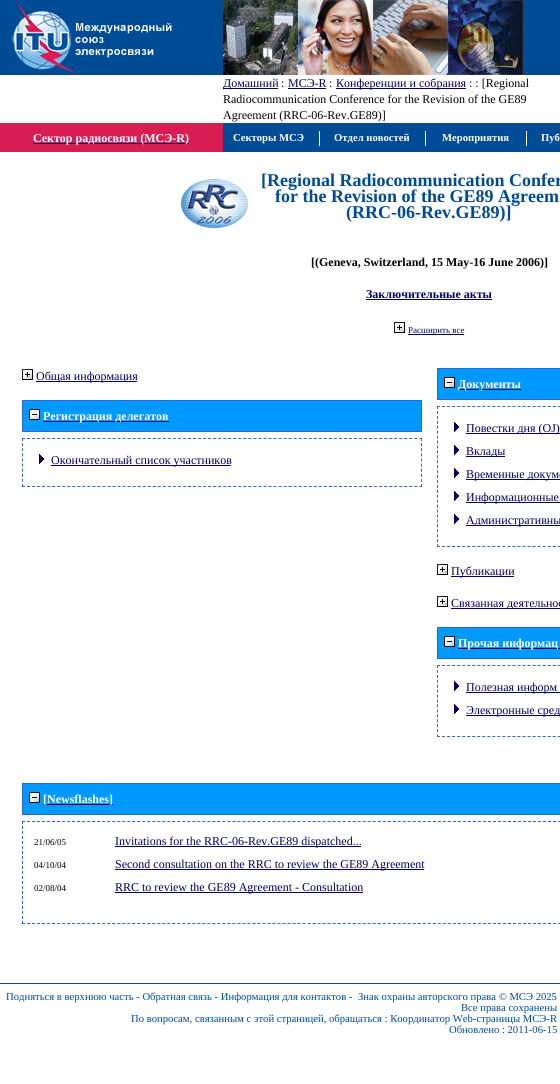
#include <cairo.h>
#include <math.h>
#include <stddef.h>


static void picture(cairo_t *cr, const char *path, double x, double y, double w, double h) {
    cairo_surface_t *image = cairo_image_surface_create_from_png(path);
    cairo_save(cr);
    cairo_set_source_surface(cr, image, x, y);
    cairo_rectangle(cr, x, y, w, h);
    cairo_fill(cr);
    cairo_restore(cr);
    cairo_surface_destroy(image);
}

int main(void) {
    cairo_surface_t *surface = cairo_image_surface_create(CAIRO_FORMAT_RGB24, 560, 1084);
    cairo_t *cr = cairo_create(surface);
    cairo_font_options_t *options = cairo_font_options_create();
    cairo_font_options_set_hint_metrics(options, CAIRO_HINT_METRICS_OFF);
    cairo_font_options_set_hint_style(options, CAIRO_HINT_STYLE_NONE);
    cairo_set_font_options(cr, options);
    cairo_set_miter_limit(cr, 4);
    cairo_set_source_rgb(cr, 1, 1, 1);
    cairo_paint(cr);
    cairo_set_source_rgb(cr, 0, 0.294, 0.588);
    cairo_rectangle(cr, 0, 0, 560, 75);
    cairo_fill(cr);
    picture(cr, "img1.png", 12, 1, 160, 72);
    picture(cr, "img2.png", 223, 0, 300, 75);
    cairo_set_source_rgb(cr, 0, 0, 0.4);
    cairo_rectangle(cr, 223, 88, 55, 1);
    cairo_fill(cr);
    cairo_select_font_face(cr, "Liberation Serif", CAIRO_FONT_SLANT_NORMAL, CAIRO_FONT_WEIGHT_NORMAL);
    cairo_set_font_size(cr, 12);
    cairo_move_to(cr, 223, 87);
    cairo_show_text(cr, "Домашний");
    cairo_set_source_rgb(cr, 0, 0, 0);
    cairo_move_to(cr, 281, 87);
    cairo_show_text(cr, ":");
    cairo_set_source_rgb(cr, 0, 0, 0.4);
    cairo_move_to(cr, 288, 87);
    cairo_show_text(cr, "МСЭ-R");
    cairo_rectangle(cr, 288, 88, 38, 1);
    cairo_fill(cr);
    cairo_set_source_rgb(cr, 0, 0, 0);
    cairo_move_to(cr, 329, 87);
    cairo_show_text(cr, ":");
    cairo_set_source_rgb(cr, 0, 0, 0.4);
    cairo_rectangle(cr, 336, 88, 130, 1);
    cairo_fill(cr);
    cairo_move_to(cr, 336, 87);
    cairo_show_text(cr, "Конференции и собрания");
    cairo_set_source_rgb(cr, 0, 0, 0);
    cairo_move_to(cr, 469, 87);
    cairo_show_text(cr, ": : [Regional");
    cairo_move_to(cr, 223, 103);
    cairo_show_text(cr, "Radiocommunication Conference for the Revision of the GE89");
    cairo_move_to(cr, 223, 119);
    cairo_show_text(cr, "Agreement (RRC-06-Rev.GE89)]");
    cairo_set_source_rgb(cr, 0.851, 0.114, 0.322);
    cairo_rectangle(cr, 0, 123, 223, 29);
    cairo_fill(cr);
    cairo_set_source_rgb(cr, 0, 0, 0.4);
    cairo_rectangle(cr, 33, 143, 156, 1);
    cairo_fill(cr);
    cairo_select_font_face(cr, "Liberation Serif", CAIRO_FONT_SLANT_NORMAL, CAIRO_FONT_WEIGHT_BOLD);
    cairo_set_source_rgb(cr, 1, 1, 1);
    cairo_move_to(cr, 33, 142);
    cairo_show_text(cr, "Сектор радиосвязи (МСЭ-R)");
    cairo_set_source_rgb(cr, 0, 0.294, 0.588);
    cairo_rectangle(cr, 223, 123, 337, 29);
    cairo_fill(cr);
    cairo_rectangle(cr, 0, 983, 560, 1);
    cairo_fill(cr);
    picture(cr, "img3.png", 180, 179, 68, 50);
    cairo_set_font_size(cr, 18);
    cairo_move_to(cr, 261, 186);
    cairo_show_text(cr, "[Regional Radiocommunication Confer");
    cairo_move_to(cr, 275, 202);
    cairo_show_text(cr, "for the Revision of the GE89 Agreem");
    cairo_move_to(cr, 346, 218);
    cairo_show_text(cr, "(RRC-06-Rev.GE89)]");
    cairo_set_font_size(cr, 12);
    cairo_set_source_rgb(cr, 0, 0, 0);
    cairo_move_to(cr, 311, 266);
    cairo_show_text(cr, "[(Geneva, Switzerland, 15 May-16 June 2006)]");
    cairo_set_source_rgb(cr, 0, 0, 0.4);
    cairo_move_to(cr, 366, 298);
    cairo_show_text(cr, "Заключительные акты");
    cairo_rectangle(cr, 366, 299, 126, 1);
    cairo_fill(cr);
    picture(cr, "img4.png", 394, 322, 11, 11);
    cairo_rectangle(cr, 408, 334, 56, 1);
    cairo_fill(cr);
    cairo_select_font_face(cr, "Liberation Serif", CAIRO_FONT_SLANT_NORMAL, CAIRO_FONT_WEIGHT_NORMAL);
    cairo_set_font_size(cr, 9);
    cairo_move_to(cr, 408, 333);
    cairo_show_text(cr, "Расширить все");
    picture(cr, "img4.png", 22, 369, 11, 11);
    cairo_rectangle(cr, 36, 381, 101, 1);
    cairo_fill(cr);
    cairo_set_font_size(cr, 12);
    cairo_move_to(cr, 36, 380);
    cairo_show_text(cr, "Общая информация");
    cairo_set_source_rgb(cr, 0, 0.6, 1);
    cairo_rectangle(cr, 22.5, 400.5, 399, 31);
    cairo_fill_preserve(cr);
    cairo_set_source_rgb(cr, 0.2, 0.4, 0.8);
    cairo_set_line_width(cr, 1);
    cairo_stroke(cr);
    picture(cr, "img5.png", 29, 409, 11, 11);
    cairo_set_source_rgb(cr, 0, 0, 0.4);
    cairo_rectangle(cr, 43, 421, 126, 1);
    cairo_fill(cr);
    cairo_select_font_face(cr, "Liberation Serif", CAIRO_FONT_SLANT_NORMAL, CAIRO_FONT_WEIGHT_BOLD);
    cairo_set_source_rgb(cr, 1, 1, 1);
    cairo_move_to(cr, 43, 420);
    cairo_show_text(cr, "Регистрация делегатов");
    cairo_new_path(cr);
    cairo_move_to(cr, 22, 438.5);
    cairo_line_to(cr, 422, 438.5);
    cairo_set_source_rgb(cr, 0.2, 0.4, 0.8);
    cairo_set_dash(cr, (double[]){3, 2.03}, 2, 0);
    cairo_stroke(cr);
    cairo_new_path(cr);
    cairo_move_to(cr, 421.5, 438);
    cairo_line_to(cr, 421.5, 487);
    cairo_set_dash(cr, (double[]){3, 2.11}, 2, 0);
    cairo_stroke(cr);
    cairo_new_path(cr);
    cairo_move_to(cr, 22, 486.5);
    cairo_line_to(cr, 422, 486.5);
    cairo_set_dash(cr, (double[]){3, 2.03}, 2, 0);
    cairo_stroke(cr);
    cairo_new_path(cr);
    cairo_move_to(cr, 22.5, 438);
    cairo_line_to(cr, 22.5, 487);
    cairo_set_dash(cr, (double[]){3, 2.11}, 2, 0);
    cairo_stroke(cr);
    picture(cr, "img6.png", 39, 454, 5, 10);
    cairo_set_source_rgb(cr, 0, 0, 0.4);
    cairo_rectangle(cr, 51, 465, 180, 1);
    cairo_fill(cr);
    cairo_select_font_face(cr, "Liberation Serif", CAIRO_FONT_SLANT_NORMAL, CAIRO_FONT_WEIGHT_NORMAL);
    cairo_move_to(cr, 51, 464);
    cairo_show_text(cr, "Окончательный список участников");
    cairo_set_source_rgb(cr, 0, 0.6, 1);
    cairo_rectangle(cr, 437.5, 368.5, 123, 31);
    cairo_fill_preserve(cr);
    cairo_set_source_rgb(cr, 0.2, 0.4, 0.8);
    cairo_set_dash(cr, NULL, 0, 0);
    cairo_stroke(cr);
    picture(cr, "img5.png", 444, 377, 11, 11);
    cairo_set_source_rgb(cr, 0, 0, 0.4);
    cairo_rectangle(cr, 458, 389, 63, 1);
    cairo_fill(cr);
    cairo_select_font_face(cr, "Liberation Serif", CAIRO_FONT_SLANT_NORMAL, CAIRO_FONT_WEIGHT_BOLD);
    cairo_set_source_rgb(cr, 1, 1, 1);
    cairo_move_to(cr, 458, 388);
    cairo_show_text(cr, "Документы");
    cairo_new_path(cr);
    cairo_move_to(cr, 437, 406.5);
    cairo_line_to(cr, 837, 406.5);
    cairo_set_source_rgb(cr, 0.2, 0.4, 0.8);
    cairo_set_dash(cr, (double[]){3, 2.03}, 2, 0);
    cairo_stroke(cr);
    cairo_new_path(cr);
    cairo_move_to(cr, 437, 546.5);
    cairo_line_to(cr, 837, 546.5);
    cairo_stroke(cr);
    cairo_new_path(cr);
    cairo_move_to(cr, 437.5, 406);
    cairo_line_to(cr, 437.5, 547);
    cairo_set_dash(cr, (double[]){3, 1.93}, 2, 0);
    cairo_stroke(cr);
    picture(cr, "img6.png", 454, 422, 5, 10);
    cairo_set_source_rgb(cr, 0, 0, 0.4);
    cairo_rectangle(cr, 466, 433, 94, 1);
    cairo_fill(cr);
    cairo_select_font_face(cr, "Liberation Serif", CAIRO_FONT_SLANT_NORMAL, CAIRO_FONT_WEIGHT_NORMAL);
    cairo_move_to(cr, 466, 432);
    cairo_show_text(cr, "Повестки дня (OJ)");
    picture(cr, "img6.png", 454, 445, 5, 10);
    cairo_rectangle(cr, 466, 456, 39, 1);
    cairo_fill(cr);
    cairo_move_to(cr, 466, 455);
    cairo_show_text(cr, "Вклады");
    picture(cr, "img6.png", 454, 468, 5, 10);
    cairo_rectangle(cr, 466, 479, 94, 1);
    cairo_fill(cr);
    cairo_move_to(cr, 466, 478);
    cairo_show_text(cr, "Временные докуме");
    picture(cr, "img6.png", 454, 491, 5, 10);
    cairo_rectangle(cr, 466, 502, 94, 1);
    cairo_fill(cr);
    cairo_move_to(cr, 466, 501);
    cairo_show_text(cr, "Информационные");
    picture(cr, "img6.png", 454, 514, 5, 10);
    cairo_rectangle(cr, 466, 525, 94, 1);
    cairo_fill(cr);
    cairo_move_to(cr, 466, 524);
    cairo_show_text(cr, "Административны");
    picture(cr, "img4.png", 437, 564, 11, 11);
    cairo_rectangle(cr, 451, 576, 63, 1);
    cairo_fill(cr);
    cairo_move_to(cr, 451, 575);
    cairo_show_text(cr, "Публикации");
    picture(cr, "img4.png", 437, 596, 11, 11);
    cairo_rectangle(cr, 451, 608, 109, 1);
    cairo_fill(cr);
    cairo_move_to(cr, 451, 607);
    cairo_show_text(cr, "Связанная деятельнос");
    cairo_set_source_rgb(cr, 0, 0.6, 1);
    cairo_rectangle(cr, 437.5, 627.5, 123, 31);
    cairo_fill_preserve(cr);
    cairo_set_source_rgb(cr, 0.2, 0.4, 0.8);
    cairo_set_dash(cr, NULL, 0, 0);
    cairo_stroke(cr);
    picture(cr, "img5.png", 444, 636, 11, 11);
    cairo_set_source_rgb(cr, 0, 0, 0.4);
    cairo_rectangle(cr, 458, 648, 102, 1);
    cairo_fill(cr);
    cairo_select_font_face(cr, "Liberation Serif", CAIRO_FONT_SLANT_NORMAL, CAIRO_FONT_WEIGHT_BOLD);
    cairo_set_source_rgb(cr, 1, 1, 1);
    cairo_move_to(cr, 458, 647);
    cairo_show_text(cr, "Прочая информац");
    cairo_new_path(cr);
    cairo_move_to(cr, 437, 665.5);
    cairo_line_to(cr, 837, 665.5);
    cairo_set_source_rgb(cr, 0.2, 0.4, 0.8);
    cairo_set_dash(cr, (double[]){3, 2.03}, 2, 0);
    cairo_stroke(cr);
    cairo_new_path(cr);
    cairo_move_to(cr, 437, 736.5);
    cairo_line_to(cr, 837, 736.5);
    cairo_stroke(cr);
    cairo_new_path(cr);
    cairo_move_to(cr, 437.5, 665);
    cairo_line_to(cr, 437.5, 737);
    cairo_set_dash(cr, (double[]){3, 1.93}, 2, 0);
    cairo_stroke(cr);
    picture(cr, "img6.png", 454, 681, 5, 10);
    cairo_set_source_rgb(cr, 0, 0, 0.4);
    cairo_rectangle(cr, 466, 692, 94, 1);
    cairo_fill(cr);
    cairo_select_font_face(cr, "Liberation Serif", CAIRO_FONT_SLANT_NORMAL, CAIRO_FONT_WEIGHT_NORMAL);
    cairo_move_to(cr, 466, 691);
    cairo_show_text(cr, "Полезная информ");
    picture(cr, "img6.png", 454, 704, 5, 10);
    cairo_rectangle(cr, 466, 715, 94, 1);
    cairo_fill(cr);
    cairo_move_to(cr, 466, 714);
    cairo_show_text(cr, "Электронные сред");
    cairo_set_source_rgb(cr, 0, 0.6, 1);
    cairo_rectangle(cr, 22.5, 783.5, 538, 31);
    cairo_fill_preserve(cr);
    cairo_set_source_rgb(cr, 0.2, 0.4, 0.8);
    cairo_set_dash(cr, NULL, 0, 0);
    cairo_stroke(cr);
    picture(cr, "img5.png", 29, 792, 11, 11);
    cairo_set_source_rgb(cr, 0, 0, 0.4);
    cairo_rectangle(cr, 43, 804, 70, 1);
    cairo_fill(cr);
    cairo_select_font_face(cr, "Liberation Serif", CAIRO_FONT_SLANT_NORMAL, CAIRO_FONT_WEIGHT_BOLD);
    cairo_set_source_rgb(cr, 1, 1, 1);
    cairo_move_to(cr, 43, 803);
    cairo_show_text(cr, "[Newsflashes]");
    cairo_new_path(cr);
    cairo_move_to(cr, 22, 821.5);
    cairo_line_to(cr, 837, 821.5);
    cairo_set_source_rgb(cr, 0.2, 0.4, 0.8);
    cairo_set_dash(cr, (double[]){3, 2.01}, 2, 0);
    cairo_stroke(cr);
    cairo_new_path(cr);
    cairo_move_to(cr, 22, 923.5);
    cairo_line_to(cr, 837, 923.5);
    cairo_stroke(cr);
    cairo_new_path(cr);
    cairo_move_to(cr, 22.5, 821);
    cairo_line_to(cr, 22.5, 924);
    cairo_set_dash(cr, (double[]){3, 2}, 2, 0);
    cairo_stroke(cr);
    cairo_select_font_face(cr, "Liberation Serif", CAIRO_FONT_SLANT_NORMAL, CAIRO_FONT_WEIGHT_NORMAL);
    cairo_set_font_size(cr, 9);
    cairo_set_source_rgb(cr, 0, 0, 0);
    cairo_move_to(cr, 34, 845);
    cairo_show_text(cr, "21/06/05");
    cairo_set_source_rgb(cr, 0, 0, 0.4);
    cairo_rectangle(cr, 115, 846, 246, 1);
    cairo_fill(cr);
    cairo_set_font_size(cr, 12);
    cairo_move_to(cr, 115, 845);
    cairo_show_text(cr, "Invitations for the RRC-06-Rev.GE89 dispatched...");
    cairo_set_font_size(cr, 9);
    cairo_set_source_rgb(cr, 0, 0, 0);
    cairo_move_to(cr, 34, 868);
    cairo_show_text(cr, "04/10/04");
    cairo_set_source_rgb(cr, 0, 0, 0.4);
    cairo_rectangle(cr, 115, 869, 309, 1);
    cairo_fill(cr);
    cairo_set_font_size(cr, 12);
    cairo_move_to(cr, 115, 868);
    cairo_show_text(cr, "Second consultation on the RRC to review the GE89 Agreement");
    cairo_set_font_size(cr, 9);
    cairo_set_source_rgb(cr, 0, 0, 0);
    cairo_move_to(cr, 34, 891);
    cairo_show_text(cr, "02/08/04");
    cairo_set_source_rgb(cr, 0, 0, 0.4);
    cairo_rectangle(cr, 115, 892, 248, 1);
    cairo_fill(cr);
    cairo_set_font_size(cr, 12);
    cairo_move_to(cr, 115, 891);
    cairo_show_text(cr, "RRC to review the GE89 Agreement - Consultation");
    cairo_set_font_size(cr, 10.65);
    cairo_set_source_rgb(cr, 0, 0.294, 0.588);
    cairo_move_to(cr, 6, 1000);
    cairo_show_text(cr, "Подняться в верхнюю часть - Обратная связь - Информация для контактов -");
    cairo_move_to(cr, 358, 1000);
    cairo_show_text(cr, "Знак охраны авторского права © МСЭ 2025");
    cairo_move_to(cr, 461, 1011);
    cairo_show_text(cr, "Все права сохранены");
    cairo_move_to(cr, 131, 1022);
    cairo_show_text(cr, "По вопросам, связанным с этой страницей, обращаться : Координатор Web-страницы МСЭ-R");
    cairo_move_to(cr, 449, 1033);
    cairo_show_text(cr, "Обновлено : 2011-06-15");
    cairo_select_font_face(cr, "Liberation Serif", CAIRO_FONT_SLANT_NORMAL, CAIRO_FONT_WEIGHT_BOLD);
    cairo_set_source_rgb(cr, 1, 1, 1);
    cairo_move_to(cr, 233, 141);
    cairo_show_text(cr, "Секторы МСЭ");
    cairo_rectangle(cr, 319, 131, 1, 15);
    cairo_fill(cr);
    cairo_move_to(cr, 334, 141);
    cairo_show_text(cr, "Отдел новостей");
    cairo_rectangle(cr, 425, 131, 1, 15);
    cairo_fill(cr);
    cairo_move_to(cr, 442, 141);
    cairo_show_text(cr, "Мероприятия");
    cairo_rectangle(cr, 526, 131, 1, 15);
    cairo_fill(cr);
    cairo_move_to(cr, 541, 141);
    cairo_show_text(cr, "Пуб");
    cairo_surface_write_to_png(surface, "page.png");
    cairo_font_options_destroy(options);
    cairo_destroy(cr);
    cairo_surface_destroy(surface);
    return 0;
}
